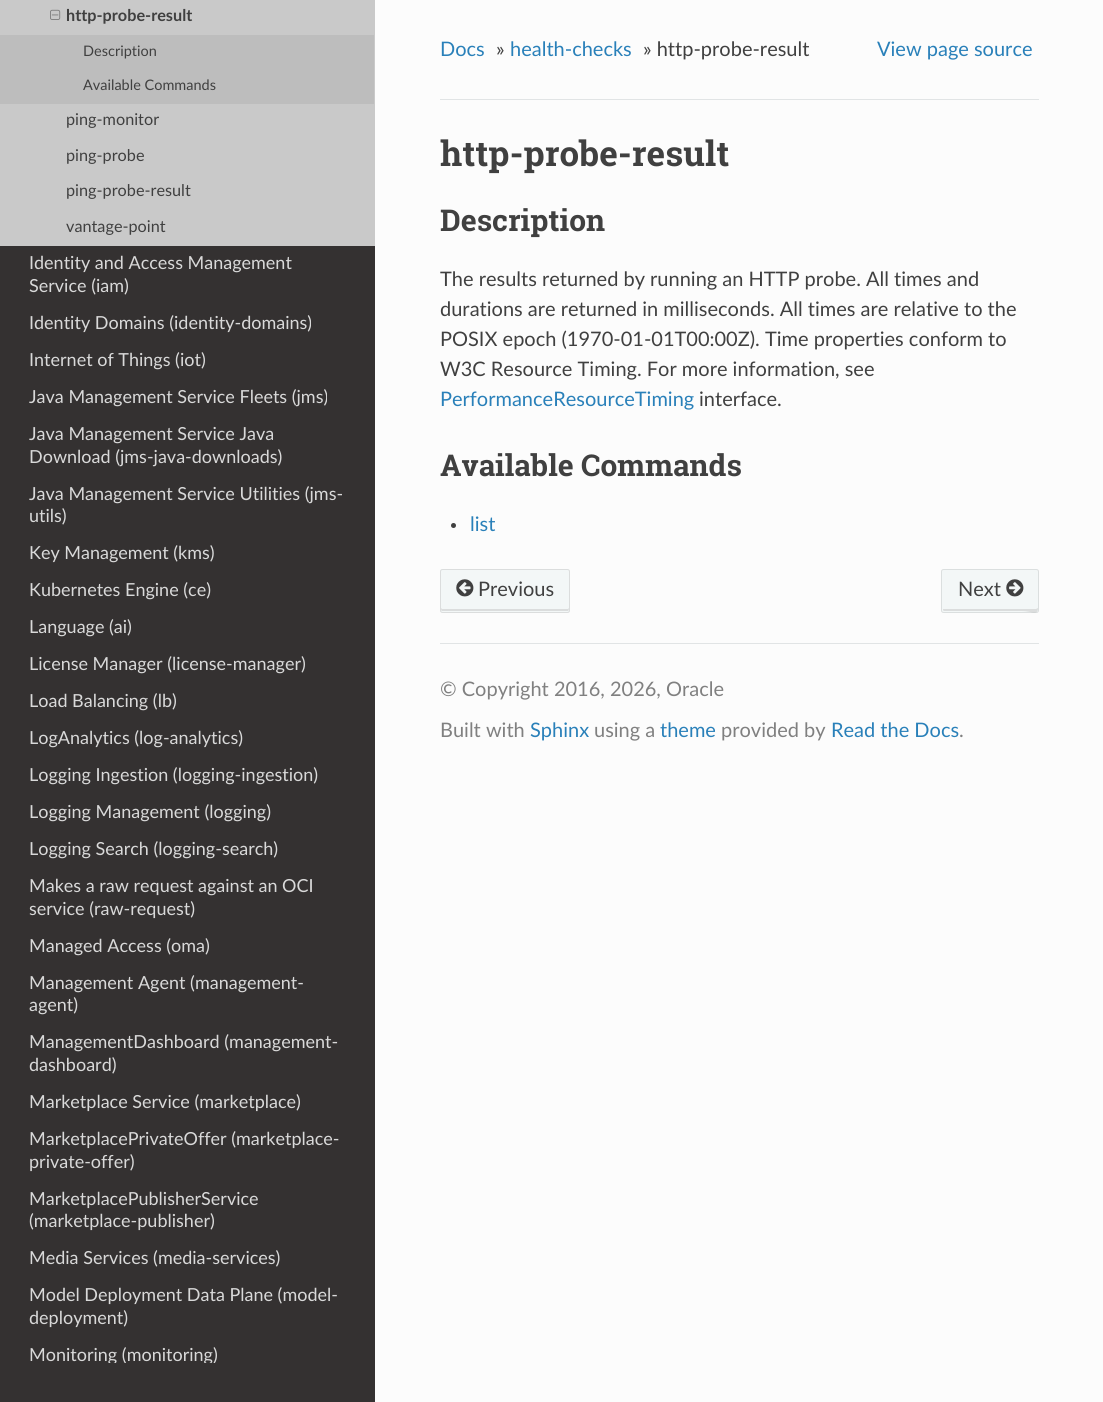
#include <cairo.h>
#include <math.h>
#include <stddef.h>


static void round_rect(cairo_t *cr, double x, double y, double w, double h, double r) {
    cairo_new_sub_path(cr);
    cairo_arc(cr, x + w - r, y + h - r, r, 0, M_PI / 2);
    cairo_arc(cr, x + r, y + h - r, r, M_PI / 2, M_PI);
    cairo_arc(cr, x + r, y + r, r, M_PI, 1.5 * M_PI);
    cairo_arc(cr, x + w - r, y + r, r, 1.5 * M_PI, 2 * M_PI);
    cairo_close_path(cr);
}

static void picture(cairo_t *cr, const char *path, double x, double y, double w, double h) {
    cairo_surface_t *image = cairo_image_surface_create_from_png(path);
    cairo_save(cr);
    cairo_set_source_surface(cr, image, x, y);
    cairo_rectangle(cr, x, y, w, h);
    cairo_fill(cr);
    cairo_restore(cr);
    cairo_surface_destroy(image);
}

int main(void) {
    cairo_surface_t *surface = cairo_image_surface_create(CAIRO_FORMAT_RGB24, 1103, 1402);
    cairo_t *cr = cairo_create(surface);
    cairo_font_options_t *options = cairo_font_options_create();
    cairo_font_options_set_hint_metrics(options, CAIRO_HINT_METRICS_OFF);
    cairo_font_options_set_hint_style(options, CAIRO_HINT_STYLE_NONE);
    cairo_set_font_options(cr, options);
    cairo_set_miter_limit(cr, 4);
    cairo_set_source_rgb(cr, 0.988, 0.988, 0.988);
    cairo_paint(cr);
    cairo_set_source_rgb(cr, 0.204, 0.192, 0.192);
    cairo_rectangle(cr, 0, 246, 375, 1156);
    cairo_fill(cr);
    cairo_set_source_rgb(cr, 0.788, 0.788, 0.788);
    cairo_rectangle(cr, 0, 0, 375, 35);
    cairo_fill(cr);
    picture(cr, "img1.png", 50, 9, 11, 11);
    cairo_select_font_face(cr, "Lato", CAIRO_FONT_SLANT_NORMAL, CAIRO_FONT_WEIGHT_BOLD);
    cairo_set_font_size(cr, 16.25);
    cairo_set_source_rgb(cr, 0.251, 0.251, 0.251);
    cairo_move_to(cr, 66, 21);
    cairo_show_text(cr, "http-probe-result");
    cairo_set_source_rgb(cr, 0.741, 0.741, 0.741);
    cairo_rectangle(cr, 0, 35, 374, 69);
    cairo_fill(cr);
    cairo_set_source_rgb(cr, 0.788, 0.788, 0.788);
    cairo_rectangle(cr, 374, 35, 1, 69);
    cairo_fill(cr);
    cairo_select_font_face(cr, "Lato", CAIRO_FONT_SLANT_NORMAL, CAIRO_FONT_WEIGHT_NORMAL);
    cairo_set_font_size(cr, 14.5);
    cairo_set_source_rgb(cr, 0.251, 0.251, 0.251);
    cairo_move_to(cr, 83, 56);
    cairo_show_text(cr, "Description");
    cairo_move_to(cr, 83, 90);
    cairo_show_text(cr, "Available Commands");
    cairo_set_source_rgb(cr, 0.788, 0.788, 0.788);
    cairo_rectangle(cr, 0, 104, 375, 142);
    cairo_fill(cr);
    cairo_set_font_size(cr, 16.25);
    cairo_set_source_rgb(cr, 0.251, 0.251, 0.251);
    cairo_move_to(cr, 66, 125);
    cairo_show_text(cr, "ping-monitor");
    cairo_move_to(cr, 66, 161);
    cairo_show_text(cr, "ping-probe");
    cairo_move_to(cr, 66, 196);
    cairo_show_text(cr, "ping-probe-result");
    cairo_move_to(cr, 66, 232);
    cairo_show_text(cr, "vantage-point");
    cairo_set_font_size(cr, 18);
    cairo_set_source_rgb(cr, 0.851, 0.851, 0.851);
    cairo_move_to(cr, 29, 269);
    cairo_show_text(cr, "Identity and Access Management");
    cairo_move_to(cr, 29, 292);
    cairo_show_text(cr, "Service (iam)");
    cairo_move_to(cr, 29, 329);
    cairo_show_text(cr, "Identity Domains (identity-domains)");
    cairo_move_to(cr, 29, 366);
    cairo_show_text(cr, "Internet of Things (iot)");
    cairo_move_to(cr, 29, 403);
    cairo_show_text(cr, "Java Management Service Fleets (jms)");
    cairo_move_to(cr, 29, 440);
    cairo_show_text(cr, "Java Management Service Java");
    cairo_move_to(cr, 29, 463);
    cairo_show_text(cr, "Download (jms-java-downloads)");
    cairo_move_to(cr, 29, 500);
    cairo_show_text(cr, "Java Management Service Utilities (jms-");
    cairo_move_to(cr, 29, 522);
    cairo_show_text(cr, "utils)");
    cairo_move_to(cr, 29, 559);
    cairo_show_text(cr, "Key Management (kms)");
    cairo_move_to(cr, 29, 596);
    cairo_show_text(cr, "Kubernetes Engine (ce)");
    cairo_move_to(cr, 29, 633);
    cairo_show_text(cr, "Language (ai)");
    cairo_move_to(cr, 29, 670);
    cairo_show_text(cr, "License Manager (license-manager)");
    cairo_move_to(cr, 29, 707);
    cairo_show_text(cr, "Load Balancing (lb)");
    cairo_move_to(cr, 29, 744);
    cairo_show_text(cr, "LogAnalytics (log-analytics)");
    cairo_move_to(cr, 29, 781);
    cairo_show_text(cr, "Logging Ingestion (logging-ingestion)");
    cairo_move_to(cr, 29, 818);
    cairo_show_text(cr, "Logging Management (logging)");
    cairo_move_to(cr, 29, 855);
    cairo_show_text(cr, "Logging Search (logging-search)");
    cairo_move_to(cr, 29, 892);
    cairo_show_text(cr, "Makes a raw request against an OCI");
    cairo_move_to(cr, 29, 915);
    cairo_show_text(cr, "service (raw-request)");
    cairo_move_to(cr, 29, 952);
    cairo_show_text(cr, "Managed Access (oma)");
    cairo_move_to(cr, 29, 989);
    cairo_show_text(cr, "Management Agent (management-");
    cairo_move_to(cr, 29, 1011);
    cairo_show_text(cr, "agent)");
    cairo_move_to(cr, 29, 1048);
    cairo_show_text(cr, "ManagementDashboard (management-");
    cairo_move_to(cr, 29, 1071);
    cairo_show_text(cr, "dashboard)");
    cairo_move_to(cr, 29, 1108);
    cairo_show_text(cr, "Marketplace Service (marketplace)");
    cairo_move_to(cr, 29, 1145);
    cairo_show_text(cr, "MarketplacePrivateOffer (marketplace-");
    cairo_move_to(cr, 29, 1168);
    cairo_show_text(cr, "private-offer)");
    cairo_move_to(cr, 29, 1205);
    cairo_show_text(cr, "MarketplacePublisherService");
    cairo_move_to(cr, 29, 1227);
    cairo_show_text(cr, "(marketplace-publisher)");
    cairo_move_to(cr, 29, 1264);
    cairo_show_text(cr, "Media Services (media-services)");
    cairo_move_to(cr, 29, 1301);
    cairo_show_text(cr, "Model Deployment Data Plane (model-");
    cairo_move_to(cr, 29, 1324);
    cairo_show_text(cr, "deployment)");
    cairo_save(cr);
    cairo_rectangle(cr, 0, 0, 375, 1363);
    cairo_clip(cr);
    cairo_move_to(cr, 29, 1361);
    cairo_show_text(cr, "Monitoring (monitoring)");
    cairo_restore(cr);
    cairo_set_font_size(cr, 20);
    cairo_set_source_rgb(cr, 0.161, 0.502, 0.725);
    cairo_move_to(cr, 440, 56);
    cairo_show_text(cr, "Docs");
    cairo_set_source_rgb(cr, 0.251, 0.251, 0.251);
    cairo_move_to(cr, 496, 56);
    cairo_show_text(cr, "»");
    cairo_set_source_rgb(cr, 0.161, 0.502, 0.725);
    cairo_move_to(cr, 510, 56);
    cairo_show_text(cr, "health-checks");
    cairo_set_source_rgb(cr, 0.251, 0.251, 0.251);
    cairo_move_to(cr, 643, 56);
    cairo_show_text(cr, "» http-probe-result");
    cairo_set_source_rgb(cr, 0.161, 0.502, 0.725);
    cairo_move_to(cr, 877, 56);
    cairo_show_text(cr, "View page source");
    cairo_set_source_rgb(cr, 0.882, 0.894, 0.898);
    cairo_rectangle(cr, 440, 99, 599, 1);
    cairo_fill(cr);
    cairo_select_font_face(cr, "Roboto Slab", CAIRO_FONT_SLANT_NORMAL, CAIRO_FONT_WEIGHT_BOLD);
    cairo_set_font_size(cr, 35);
    cairo_set_source_rgb(cr, 0.251, 0.251, 0.251);
    cairo_move_to(cr, 440, 166);
    cairo_show_text(cr, "http-probe-result");
    cairo_set_font_size(cr, 30);
    cairo_move_to(cr, 440, 231);
    cairo_show_text(cr, "Description");
    cairo_select_font_face(cr, "Lato", CAIRO_FONT_SLANT_NORMAL, CAIRO_FONT_WEIGHT_NORMAL);
    cairo_set_font_size(cr, 20);
    cairo_move_to(cr, 440, 286);
    cairo_show_text(cr, "The results returned by running an HTTP probe. All times and");
    cairo_move_to(cr, 440, 316);
    cairo_show_text(cr, "durations are returned in milliseconds. All times are relative to the");
    cairo_move_to(cr, 440, 346);
    cairo_show_text(cr, "POSIX epoch (1970-01-01T00:00Z). Time properties conform to");
    cairo_move_to(cr, 440, 376);
    cairo_show_text(cr, "W3C Resource Timing. For more information, see");
    cairo_set_source_rgb(cr, 0.161, 0.502, 0.725);
    cairo_move_to(cr, 440, 406);
    cairo_show_text(cr, "PerformanceResourceTiming");
    cairo_set_source_rgb(cr, 0.251, 0.251, 0.251);
    cairo_move_to(cr, 699, 406);
    cairo_show_text(cr, "interface.");
    cairo_select_font_face(cr, "Roboto Slab", CAIRO_FONT_SLANT_NORMAL, CAIRO_FONT_WEIGHT_BOLD);
    cairo_set_font_size(cr, 30);
    cairo_move_to(cr, 440, 476);
    cairo_show_text(cr, "Available Commands");
    cairo_new_path(cr);
    cairo_arc(cr, 453.5, 525.5, 2.5, 0, 2 * M_PI);
    cairo_fill(cr);
    cairo_select_font_face(cr, "Lato", CAIRO_FONT_SLANT_NORMAL, CAIRO_FONT_WEIGHT_NORMAL);
    cairo_set_font_size(cr, 20);
    cairo_set_source_rgb(cr, 0.161, 0.502, 0.725);
    cairo_move_to(cr, 470, 531);
    cairo_show_text(cr, "list");
    cairo_set_source_rgb(cr, 0.953, 0.965, 0.965);
    round_rect(cr, 440, 569, 130, 44, 2.5);
    cairo_fill(cr);
    cairo_set_source_rgb(cr, 0.859, 0.867, 0.867);
    cairo_new_path(cr);
    cairo_move_to(cr, 441, 608);
    cairo_curve_to(cr, 441, 609, 441, 611, 442, 611);
    cairo_line_to(cr, 568, 611);
    cairo_curve_to(cr, 569, 610, 569, 609, 569, 608);
    cairo_line_to(cr, 568, 609);
    cairo_line_to(cr, 442, 609);
    cairo_close_path(cr);
    cairo_fill(cr);
    round_rect(cr, 440.5, 569.5, 129, 43, 2);
    cairo_set_line_width(cr, 1);
    cairo_stroke(cr);
    picture(cr, "img2.png", 456, 579, 18, 18);
    cairo_set_source_rgb(cr, 0.251, 0.251, 0.251);
    cairo_move_to(cr, 478, 596);
    cairo_show_text(cr, "Previous");
    cairo_set_source_rgb(cr, 0.953, 0.965, 0.965);
    round_rect(cr, 941, 569, 98, 44, 2.5);
    cairo_fill(cr);
    cairo_set_source_rgb(cr, 0.859, 0.867, 0.867);
    cairo_new_path(cr);
    cairo_move_to(cr, 943, 609);
    cairo_curve_to(cr, 943, 609, 943, 611, 944, 611);
    cairo_line_to(cr, 1022, 611);
    cairo_curve_to(cr, 1031, 611, 1038, 616, 1038, 608);
    cairo_line_to(cr, 1036, 609);
    cairo_close_path(cr);
    cairo_fill(cr);
    round_rect(cr, 941.5, 569.5, 97, 43, 2);
    cairo_set_source_rgba(cr, 0, 0, 0, 0.1);
    cairo_stroke(cr);
    cairo_set_source_rgb(cr, 0.251, 0.251, 0.251);
    cairo_move_to(cr, 958, 596);
    cairo_show_text(cr, "Next");
    picture(cr, "img3.png", 1006, 579, 18, 18);
    cairo_set_source_rgb(cr, 0.882, 0.894, 0.898);
    cairo_rectangle(cr, 440, 643, 599, 1);
    cairo_fill(cr);
    cairo_set_source_rgb(cr, 0.502, 0.502, 0.502);
    cairo_move_to(cr, 440, 696);
    cairo_show_text(cr, "© Copyright 2016, 2026, Oracle");
    cairo_move_to(cr, 440, 737);
    cairo_show_text(cr, "Built with");
    cairo_set_source_rgb(cr, 0.161, 0.502, 0.725);
    cairo_move_to(cr, 530, 737);
    cairo_show_text(cr, "Sphinx");
    cairo_set_source_rgb(cr, 0.502, 0.502, 0.502);
    cairo_move_to(cr, 594, 737);
    cairo_show_text(cr, "using a");
    cairo_set_source_rgb(cr, 0.161, 0.502, 0.725);
    cairo_move_to(cr, 660, 737);
    cairo_show_text(cr, "theme");
    cairo_set_source_rgb(cr, 0.502, 0.502, 0.502);
    cairo_move_to(cr, 721, 737);
    cairo_show_text(cr, "provided by");
    cairo_set_source_rgb(cr, 0.161, 0.502, 0.725);
    cairo_move_to(cr, 831, 737);
    cairo_show_text(cr, "Read the Docs");
    cairo_set_source_rgb(cr, 0.502, 0.502, 0.502);
    cairo_move_to(cr, 959, 737);
    cairo_show_text(cr, ".");
    cairo_surface_write_to_png(surface, "page.png");
    cairo_font_options_destroy(options);
    cairo_destroy(cr);
    cairo_surface_destroy(surface);
    return 0;
}
